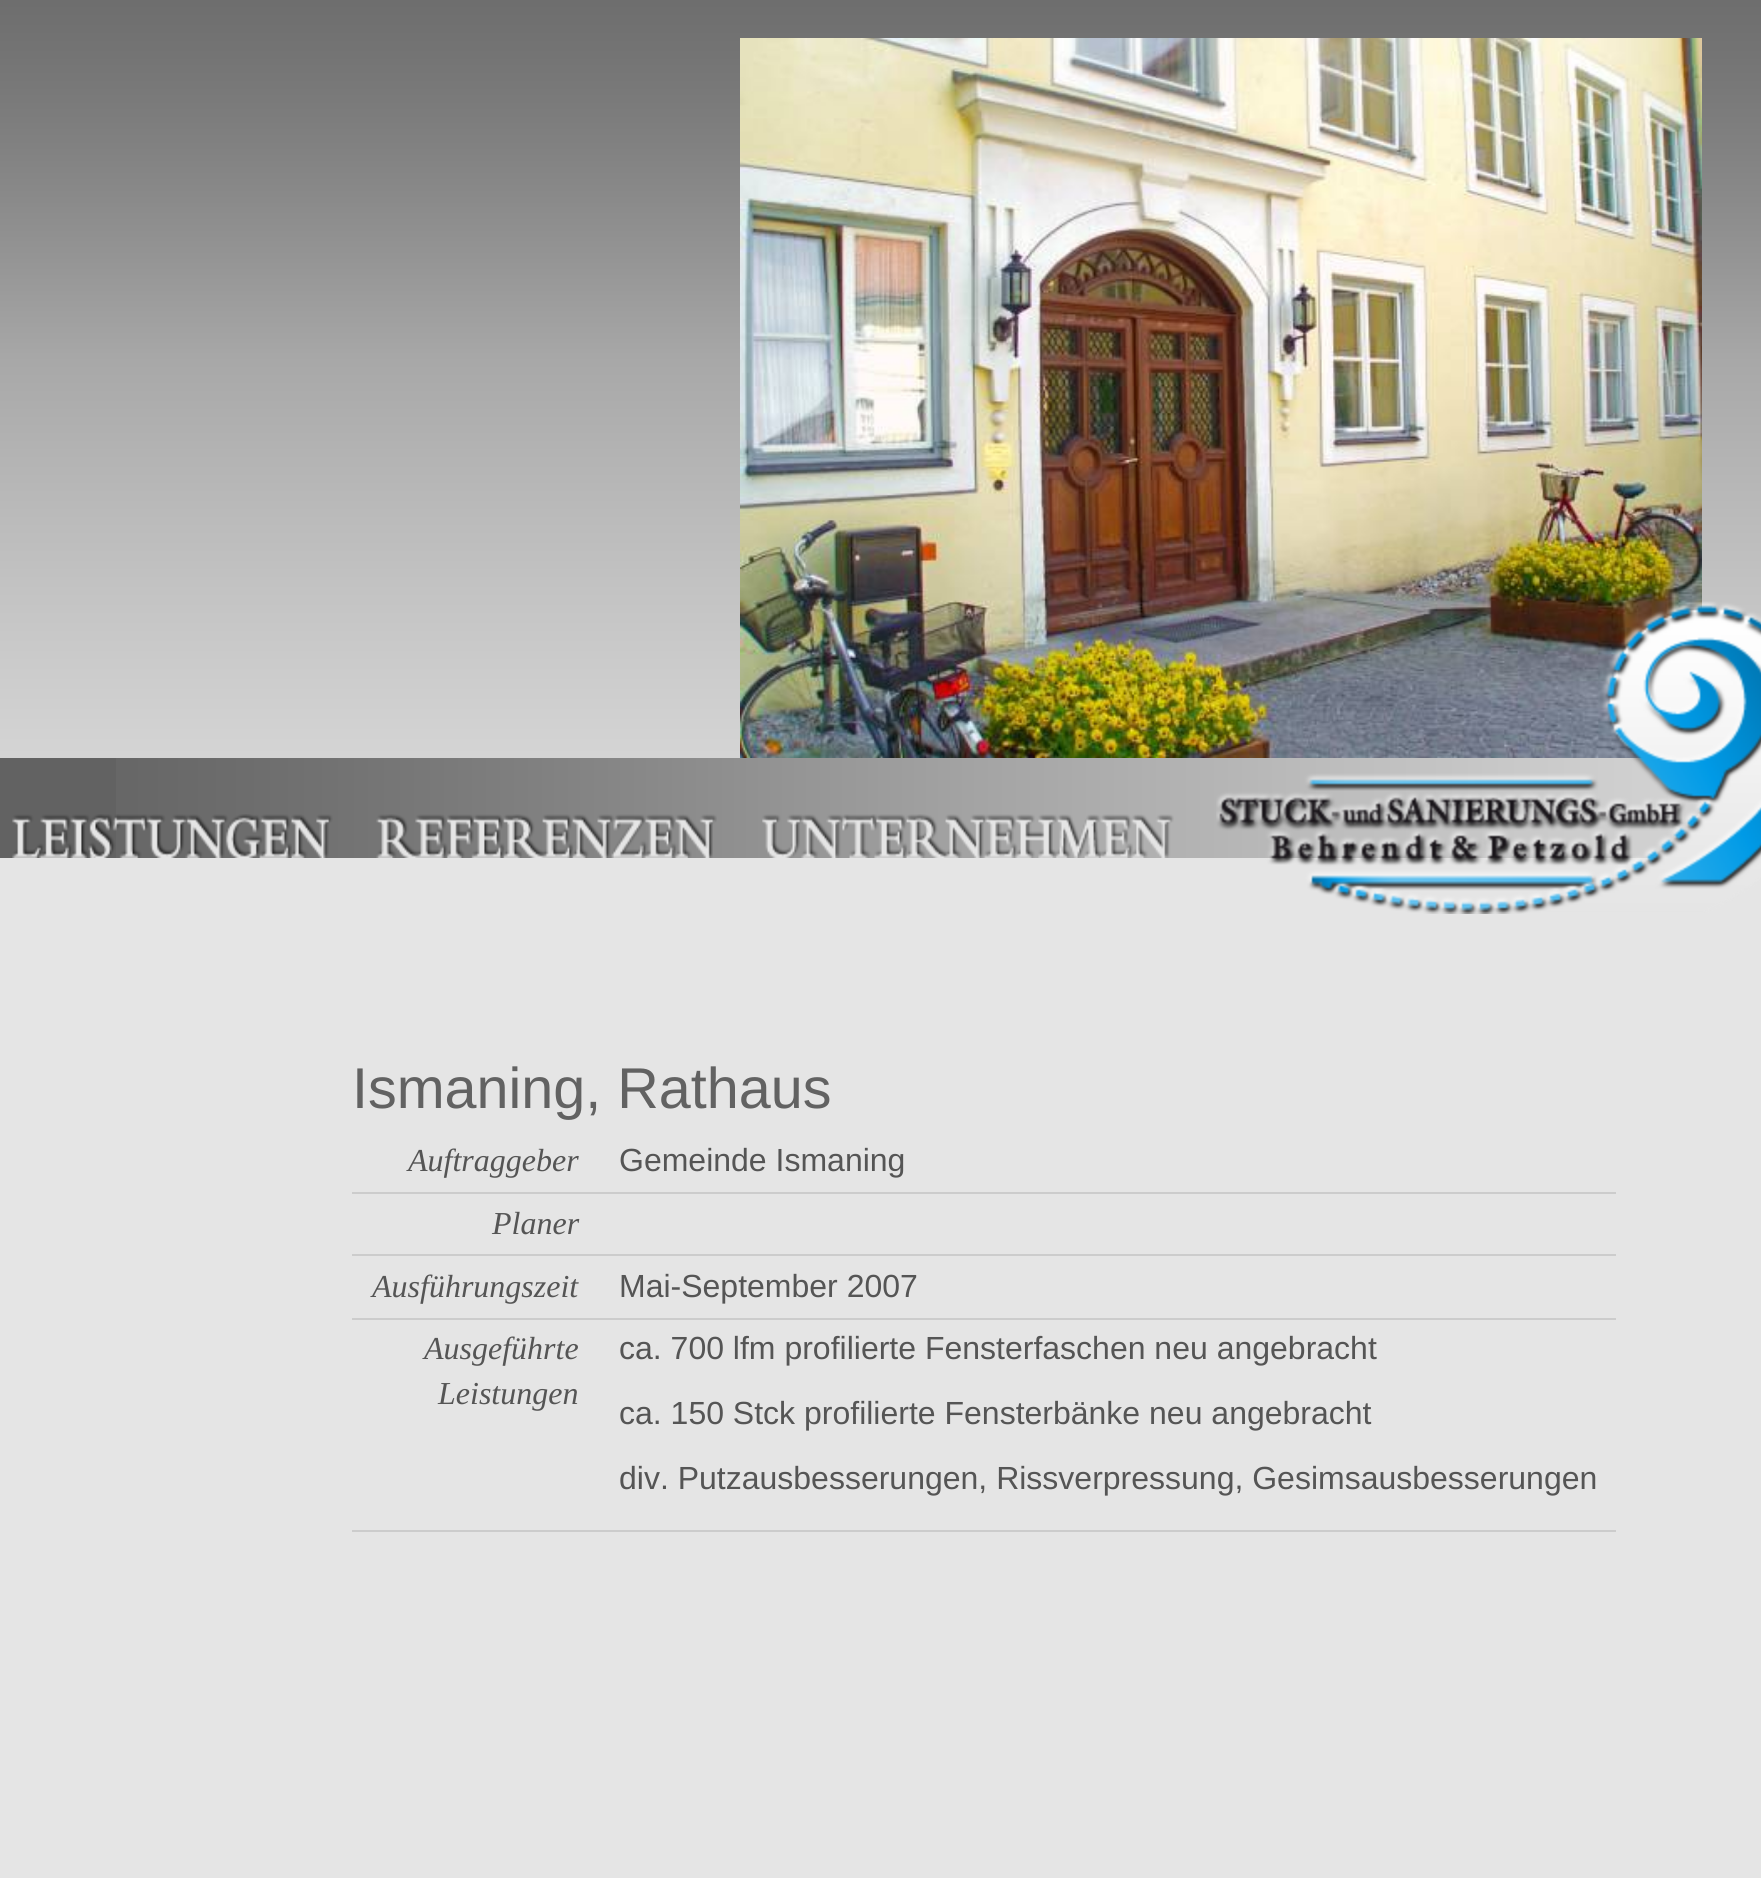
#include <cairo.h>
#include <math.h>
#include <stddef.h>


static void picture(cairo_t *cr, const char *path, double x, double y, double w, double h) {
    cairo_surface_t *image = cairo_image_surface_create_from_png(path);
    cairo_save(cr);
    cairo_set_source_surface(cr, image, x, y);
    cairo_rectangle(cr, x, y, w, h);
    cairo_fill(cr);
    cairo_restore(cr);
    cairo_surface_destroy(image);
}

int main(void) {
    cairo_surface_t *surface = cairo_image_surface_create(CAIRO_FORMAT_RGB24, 1761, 1878);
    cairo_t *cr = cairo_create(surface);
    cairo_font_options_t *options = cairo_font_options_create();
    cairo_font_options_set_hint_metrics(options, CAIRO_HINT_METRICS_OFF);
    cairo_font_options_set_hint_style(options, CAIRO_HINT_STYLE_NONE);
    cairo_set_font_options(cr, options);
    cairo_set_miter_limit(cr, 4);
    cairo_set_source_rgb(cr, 1, 1, 1);
    cairo_paint(cr);
    picture(cr, "img1.png", 0, 0, 1761, 758);
    picture(cr, "img2.png", 740, 38, 962, 720);
    cairo_set_source_rgb(cr, 0.384, 0.384, 0.384);
    cairo_rectangle(cr, 0, 758, 116, 100);
    cairo_fill(cr);
    picture(cr, "img3.png", 116, 758, 1595, 100);
    picture(cr, "img4.png", 12, 814, 321, 44);
    picture(cr, "img5.png", 376, 814, 341, 44);
    picture(cr, "img6.png", 762, 814, 412, 44);
    cairo_set_source_rgb(cr, 0.898, 0.898, 0.898);
    cairo_rectangle(cr, 0, 858, 1761, 1020);
    cairo_fill(cr);
    picture(cr, "img7.png", 1216, 601, 545, 313);
    cairo_select_font_face(cr, "Liberation Sans", CAIRO_FONT_SLANT_NORMAL, CAIRO_FONT_WEIGHT_NORMAL);
    cairo_set_font_size(cr, 57.5);
    cairo_set_source_rgb(cr, 0.384, 0.384, 0.384);
    cairo_move_to(cr, 352, 1108);
    cairo_show_text(cr, "Ismaning, Rathaus");
    cairo_set_source_rgb(cr, 0.8, 0.8, 0.8);
    cairo_rectangle(cr, 352, 1192, 1264, 2);
    cairo_fill(cr);
    cairo_select_font_face(cr, "Liberation Serif", CAIRO_FONT_SLANT_ITALIC, CAIRO_FONT_WEIGHT_NORMAL);
    cairo_set_font_size(cr, 32);
    cairo_set_source_rgb(cr, 0.333, 0.333, 0.333);
    cairo_move_to(cr, 408, 1171);
    cairo_show_text(cr, "Auftraggeber");
    cairo_select_font_face(cr, "Liberation Sans", CAIRO_FONT_SLANT_NORMAL, CAIRO_FONT_WEIGHT_NORMAL);
    cairo_move_to(cr, 619, 1171);
    cairo_show_text(cr, "Gemeinde Ismaning");
    cairo_set_source_rgb(cr, 0.8, 0.8, 0.8);
    cairo_rectangle(cr, 352, 1254, 1264, 2);
    cairo_fill(cr);
    cairo_select_font_face(cr, "Liberation Serif", CAIRO_FONT_SLANT_ITALIC, CAIRO_FONT_WEIGHT_NORMAL);
    cairo_set_source_rgb(cr, 0.333, 0.333, 0.333);
    cairo_move_to(cr, 492, 1234);
    cairo_show_text(cr, "Planer");
    cairo_set_source_rgb(cr, 0.8, 0.8, 0.8);
    cairo_rectangle(cr, 352, 1318, 1264, 2);
    cairo_fill(cr);
    cairo_set_source_rgb(cr, 0.333, 0.333, 0.333);
    cairo_move_to(cr, 372, 1297);
    cairo_show_text(cr, "Ausführungszeit");
    cairo_select_font_face(cr, "Liberation Sans", CAIRO_FONT_SLANT_NORMAL, CAIRO_FONT_WEIGHT_NORMAL);
    cairo_move_to(cr, 619, 1297);
    cairo_show_text(cr, "Mai-September 2007");
    cairo_set_source_rgb(cr, 0.8, 0.8, 0.8);
    cairo_rectangle(cr, 352, 1530, 1264, 2);
    cairo_fill(cr);
    cairo_select_font_face(cr, "Liberation Serif", CAIRO_FONT_SLANT_ITALIC, CAIRO_FONT_WEIGHT_NORMAL);
    cairo_set_source_rgb(cr, 0.333, 0.333, 0.333);
    cairo_move_to(cr, 424, 1359);
    cairo_show_text(cr, "Ausgeführte");
    cairo_move_to(cr, 438, 1404);
    cairo_show_text(cr, "Leistungen");
    cairo_select_font_face(cr, "Liberation Sans", CAIRO_FONT_SLANT_NORMAL, CAIRO_FONT_WEIGHT_NORMAL);
    cairo_move_to(cr, 619, 1359);
    cairo_show_text(cr, "ca. 700 lfm profilierte Fensterfaschen neu angebracht");
    cairo_move_to(cr, 619, 1424);
    cairo_show_text(cr, "ca. 150 Stck profilierte Fensterbänke neu angebracht");
    cairo_move_to(cr, 619, 1489);
    cairo_show_text(cr, "div. Putzausbesserungen, Rissverpressung, Gesimsausbesserungen");
    cairo_surface_write_to_png(surface, "page.png");
    cairo_font_options_destroy(options);
    cairo_destroy(cr);
    cairo_surface_destroy(surface);
    return 0;
}
